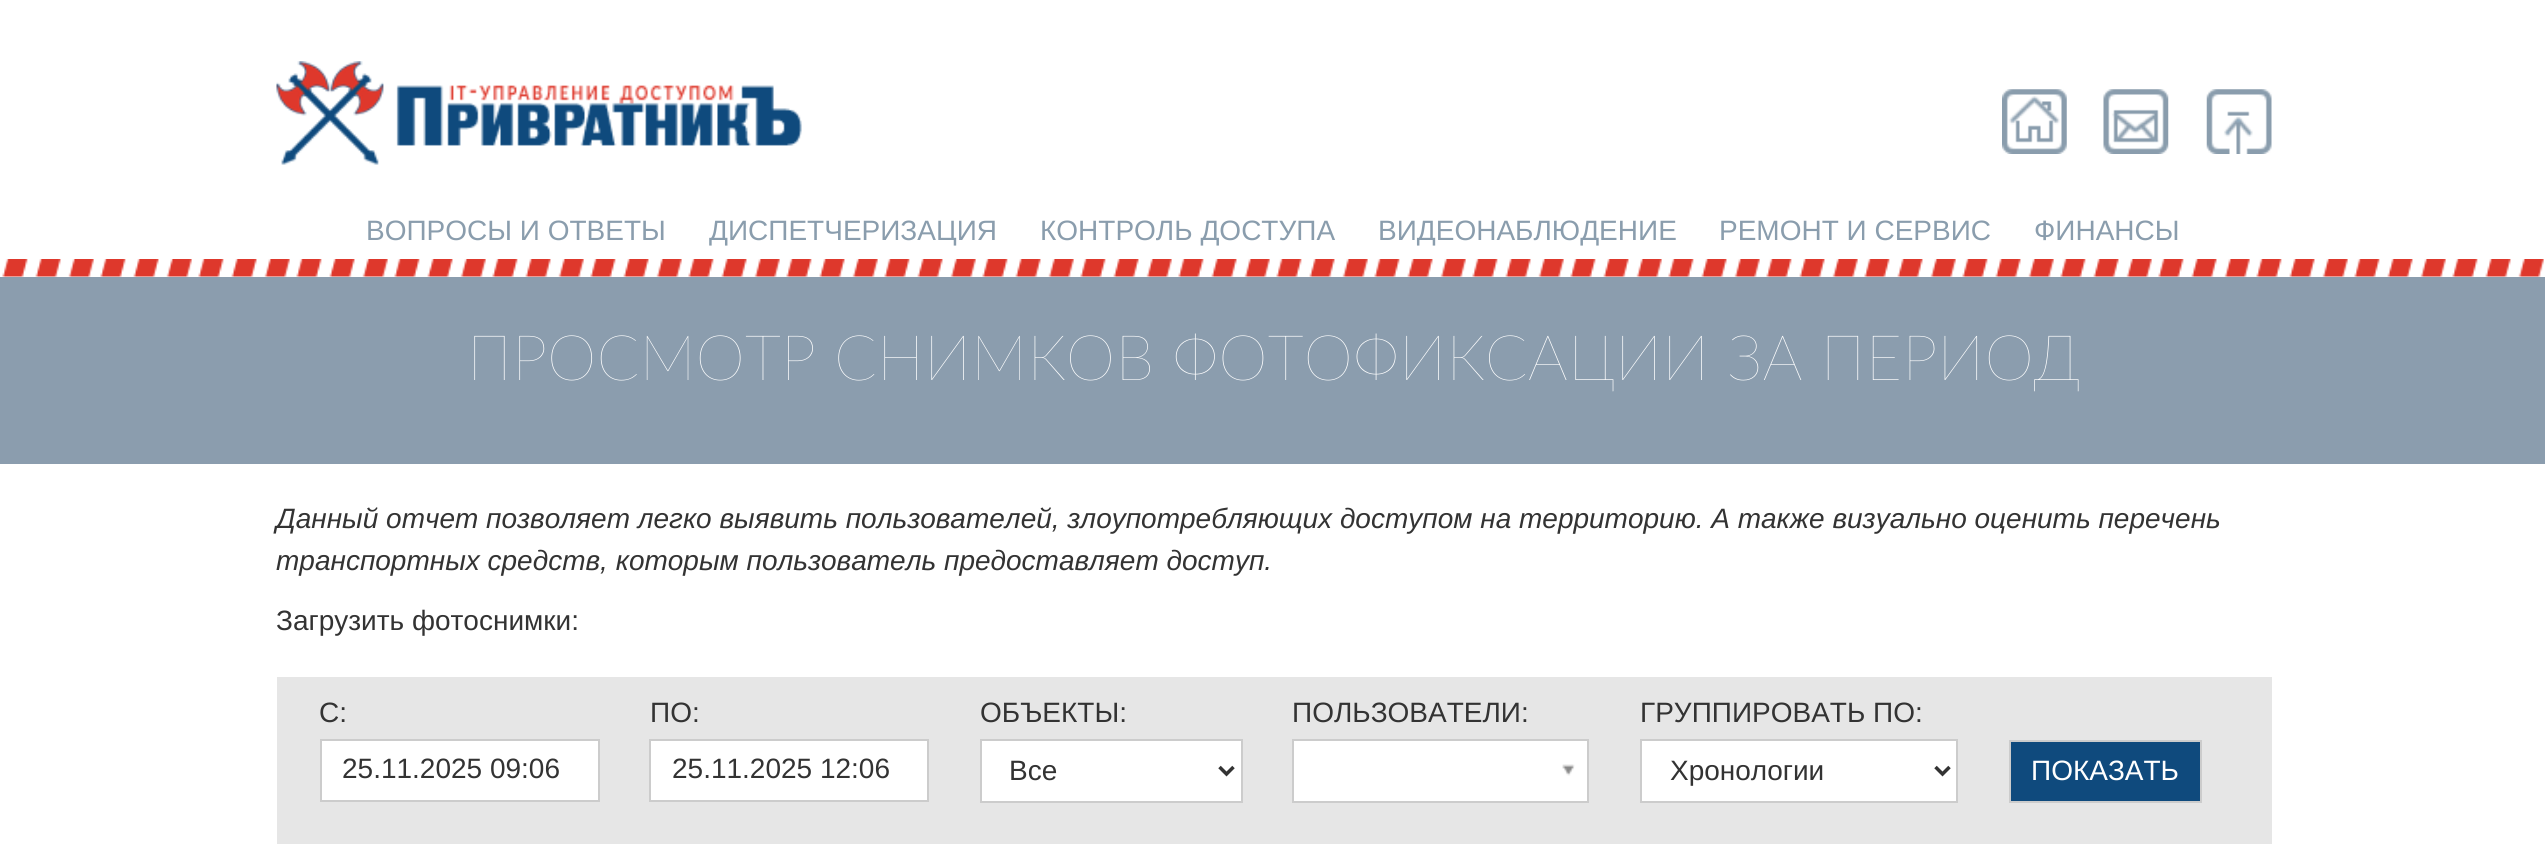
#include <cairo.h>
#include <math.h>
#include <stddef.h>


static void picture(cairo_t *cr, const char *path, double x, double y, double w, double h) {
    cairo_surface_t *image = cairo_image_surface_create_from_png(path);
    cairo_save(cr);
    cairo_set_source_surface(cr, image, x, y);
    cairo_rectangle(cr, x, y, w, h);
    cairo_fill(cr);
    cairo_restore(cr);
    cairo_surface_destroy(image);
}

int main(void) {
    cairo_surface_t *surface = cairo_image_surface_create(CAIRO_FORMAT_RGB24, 2545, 844);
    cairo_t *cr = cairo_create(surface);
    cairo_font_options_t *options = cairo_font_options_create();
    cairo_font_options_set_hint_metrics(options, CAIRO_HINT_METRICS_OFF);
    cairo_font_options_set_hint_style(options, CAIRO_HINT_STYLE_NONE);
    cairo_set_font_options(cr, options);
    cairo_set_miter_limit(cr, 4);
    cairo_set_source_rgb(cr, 1, 1, 1);
    cairo_paint(cr);
    picture(cr, "img1.png", 2, 259, 2542, 18);
    picture(cr, "img2.png", 276, 61, 526, 104);
    picture(cr, "img3.png", 2002, 89, 65, 65);
    picture(cr, "img4.png", 2103, 89, 66, 65);
    picture(cr, "img5.png", 2206, 89, 66, 65);
    cairo_select_font_face(cr, "Liberation Sans", CAIRO_FONT_SLANT_NORMAL, CAIRO_FONT_WEIGHT_NORMAL);
    cairo_set_font_size(cr, 28);
    cairo_set_source_rgb(cr, 0.541, 0.616, 0.678);
    cairo_move_to(cr, 366, 240);
    cairo_show_text(cr, "ВОПРОСЫ И ОТВЕТЫ");
    cairo_move_to(cr, 709, 240);
    cairo_show_text(cr, "ДИСПЕТЧЕРИЗАЦИЯ");
    cairo_move_to(cr, 1040, 240);
    cairo_show_text(cr, "КОНТРОЛЬ ДОСТУПА");
    cairo_move_to(cr, 1378, 240);
    cairo_show_text(cr, "ВИДЕОНАБЛЮДЕНИЕ");
    cairo_move_to(cr, 1719, 240);
    cairo_show_text(cr, "РЕМОНТ И СЕРВИС");
    cairo_move_to(cr, 2034, 240);
    cairo_show_text(cr, "ФИНАНСЫ");
    cairo_set_source_rgb(cr, 0.545, 0.616, 0.682);
    cairo_rectangle(cr, 0, 277, 2545, 187);
    cairo_fill(cr);
    cairo_select_font_face(cr, "Lato Thin", CAIRO_FONT_SLANT_NORMAL, CAIRO_FONT_WEIGHT_NORMAL);
    cairo_set_font_size(cr, 63);
    cairo_set_source_rgb(cr, 1, 1, 1);
    cairo_move_to(cr, 467, 380);
    cairo_show_text(cr, "ПРОСМОТР СНИМКОВ ФОТОФИКСАЦИИ ЗА ПЕРИОД");
    cairo_select_font_face(cr, "Liberation Sans", CAIRO_FONT_SLANT_ITALIC, CAIRO_FONT_WEIGHT_NORMAL);
    cairo_set_font_size(cr, 28);
    cairo_set_source_rgb(cr, 0.2, 0.2, 0.2);
    cairo_move_to(cr, 276, 528);
    cairo_show_text(cr, "Данный отчет позволяет легко выявить пользователей, злоупотребляющих доступом на территорию. А также визуально оценить перечень");
    cairo_move_to(cr, 276, 570);
    cairo_show_text(cr, "транспортных средств, которым пользователь предоставляет доступ.");
    cairo_select_font_face(cr, "Liberation Sans", CAIRO_FONT_SLANT_NORMAL, CAIRO_FONT_WEIGHT_NORMAL);
    cairo_move_to(cr, 276, 630);
    cairo_show_text(cr, "Загрузить фотоснимки:");
    cairo_set_source_rgb(cr, 0.902, 0.902, 0.902);
    cairo_rectangle(cr, 277, 677, 1995, 167);
    cairo_fill(cr);
    cairo_set_source_rgb(cr, 0.2, 0.2, 0.2);
    cairo_move_to(cr, 319, 722);
    cairo_show_text(cr, "C:");
    cairo_set_source_rgb(cr, 1, 1, 1);
    cairo_rectangle(cr, 321, 740, 278, 61);
    cairo_fill_preserve(cr);
    cairo_set_source_rgb(cr, 0.8, 0.8, 0.8);
    cairo_stroke(cr);
    cairo_set_source_rgb(cr, 0.2, 0.2, 0.2);
    cairo_move_to(cr, 342, 778);
    cairo_show_text(cr, "25.11.2025 09:06");
    cairo_move_to(cr, 650, 722);
    cairo_show_text(cr, "ПО:");
    cairo_set_source_rgb(cr, 1, 1, 1);
    cairo_rectangle(cr, 650, 740, 278, 61);
    cairo_fill_preserve(cr);
    cairo_set_source_rgb(cr, 0.8, 0.8, 0.8);
    cairo_stroke(cr);
    cairo_set_source_rgb(cr, 0.2, 0.2, 0.2);
    cairo_move_to(cr, 672, 778);
    cairo_show_text(cr, "25.11.2025 12:06");
    cairo_move_to(cr, 980, 722);
    cairo_show_text(cr, "ОБЪЕКТЫ:");
    cairo_set_source_rgb(cr, 1, 1, 1);
    cairo_rectangle(cr, 981, 740, 261, 62);
    cairo_fill_preserve(cr);
    cairo_set_source_rgb(cr, 0.8, 0.8, 0.8);
    cairo_stroke(cr);
    cairo_new_path(cr);
    cairo_move_to(cr, 1219.5, 767);
    cairo_line_to(cr, 1226.5, 774);
    cairo_line_to(cr, 1233.5, 767);
    cairo_set_source_rgb(cr, 0.2, 0.2, 0.2);
    cairo_set_line_width(cr, 3.5);
    cairo_stroke(cr);
    cairo_move_to(cr, 1009, 780);
    cairo_show_text(cr, "Все");
    cairo_move_to(cr, 1292, 722);
    cairo_show_text(cr, "ПОЛЬЗОВАТЕЛИ:");
    cairo_set_source_rgb(cr, 1, 1, 1);
    cairo_rectangle(cr, 1293, 740, 295, 62);
    cairo_fill_preserve(cr);
    cairo_set_source_rgb(cr, 0.8, 0.8, 0.8);
    cairo_set_line_width(cr, 2);
    cairo_stroke(cr);
    picture(cr, "img6.png", 1562, 764, 13, 12);
    cairo_set_source_rgb(cr, 0.2, 0.2, 0.2);
    cairo_move_to(cr, 1640, 722);
    cairo_show_text(cr, "ГРУППИРОВАТЬ ПО:");
    cairo_set_source_rgb(cr, 1, 1, 1);
    cairo_rectangle(cr, 1641, 740, 316, 62);
    cairo_fill_preserve(cr);
    cairo_set_source_rgb(cr, 0.8, 0.8, 0.8);
    cairo_stroke(cr);
    cairo_new_path(cr);
    cairo_move_to(cr, 1935.5, 767);
    cairo_line_to(cr, 1942.5, 774);
    cairo_line_to(cr, 1949.5, 767);
    cairo_set_source_rgb(cr, 0.2, 0.2, 0.2);
    cairo_set_line_width(cr, 3.5);
    cairo_stroke(cr);
    cairo_move_to(cr, 1670, 780);
    cairo_show_text(cr, "Хронологии");
    cairo_set_source_rgb(cr, 0.059, 0.29, 0.49);
    cairo_rectangle(cr, 2010, 741, 191, 61);
    cairo_fill_preserve(cr);
    cairo_set_source_rgb(cr, 0.8, 0.8, 0.8);
    cairo_set_line_width(cr, 2);
    cairo_stroke(cr);
    cairo_set_source_rgb(cr, 1, 1, 1);
    cairo_move_to(cr, 2031, 780);
    cairo_show_text(cr, "ПОКАЗАТЬ");
    cairo_surface_write_to_png(surface, "page.png");
    cairo_font_options_destroy(options);
    cairo_destroy(cr);
    cairo_surface_destroy(surface);
    return 0;
}
